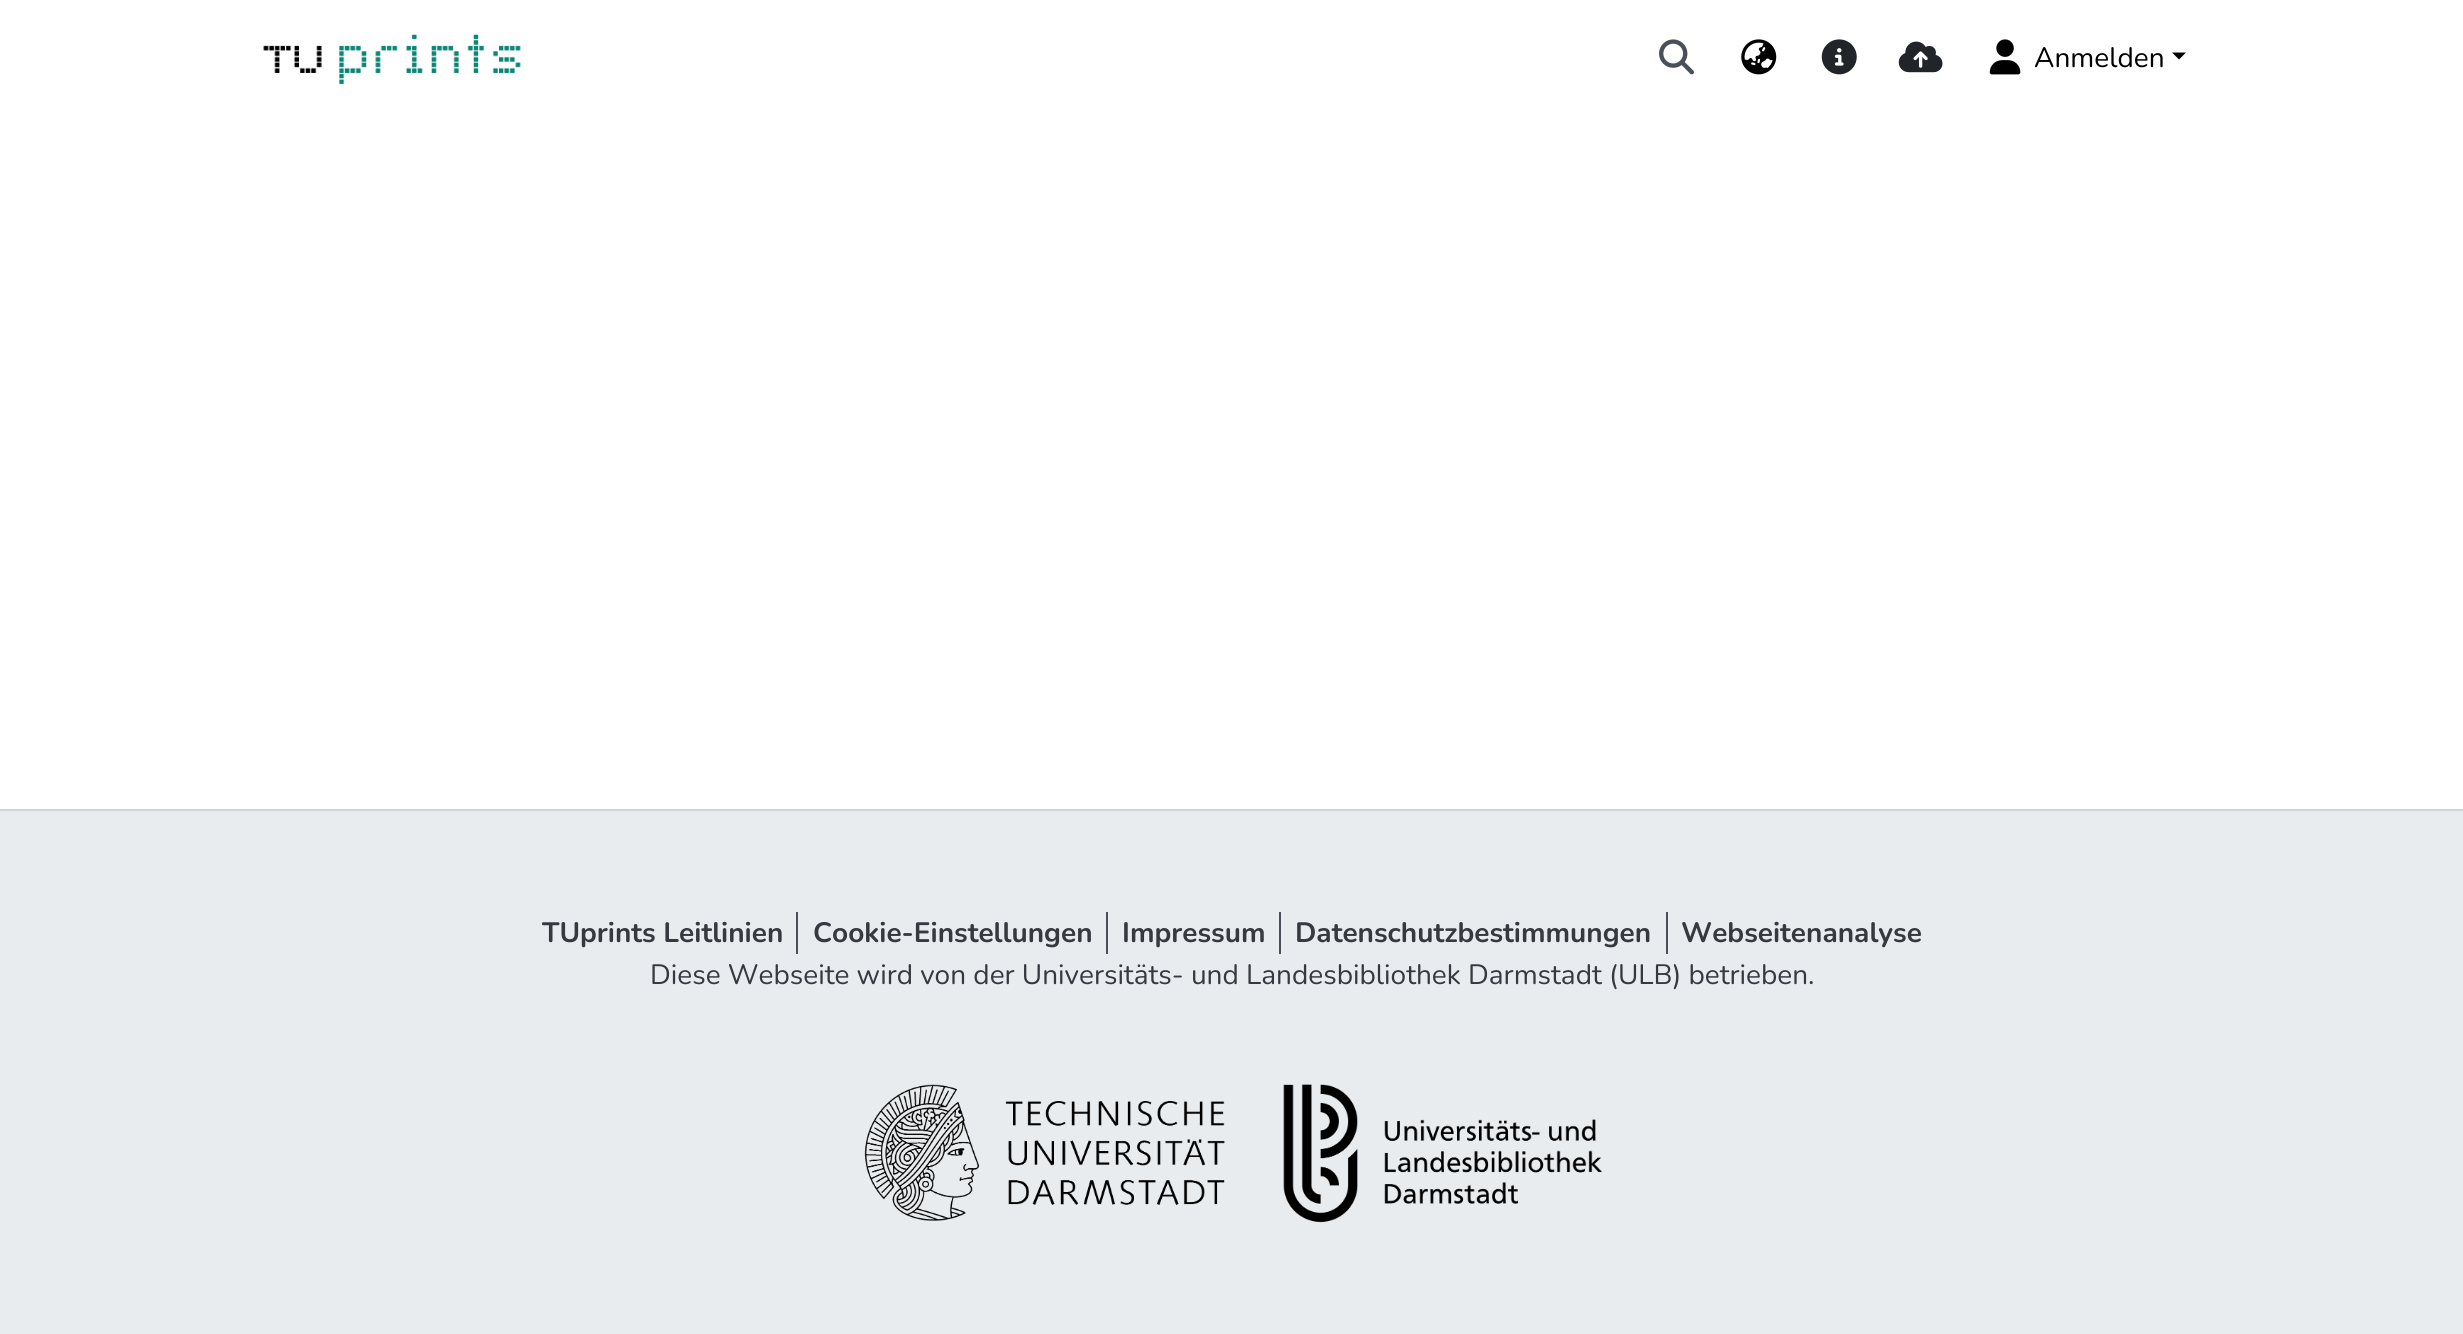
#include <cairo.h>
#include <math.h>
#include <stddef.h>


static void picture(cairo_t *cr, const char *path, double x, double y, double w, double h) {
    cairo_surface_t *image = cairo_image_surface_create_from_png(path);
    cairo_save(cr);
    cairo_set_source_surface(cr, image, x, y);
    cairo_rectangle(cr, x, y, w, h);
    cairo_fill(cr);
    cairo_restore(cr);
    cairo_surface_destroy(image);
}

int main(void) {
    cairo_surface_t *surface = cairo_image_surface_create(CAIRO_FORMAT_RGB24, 2463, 1334);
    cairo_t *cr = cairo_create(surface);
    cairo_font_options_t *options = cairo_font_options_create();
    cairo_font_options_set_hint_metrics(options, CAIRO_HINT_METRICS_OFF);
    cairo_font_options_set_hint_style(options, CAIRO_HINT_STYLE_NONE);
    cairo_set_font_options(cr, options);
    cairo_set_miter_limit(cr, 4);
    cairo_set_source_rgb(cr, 1, 1, 1);
    cairo_paint(cr);
    picture(cr, "img1.png", 263, 34, 258, 51);
    picture(cr, "img2.png", 1659, 39, 35, 36);
    picture(cr, "img3.png", 1741, 39, 36, 36);
    picture(cr, "img4.png", 1821, 39, 36, 36);
    picture(cr, "img5.png", 1898, 41, 45, 32);
    picture(cr, "img6.png", 1989, 39, 32, 36);
    cairo_select_font_face(cr, "Nunito", CAIRO_FONT_SLANT_NORMAL, CAIRO_FONT_WEIGHT_NORMAL);
    cairo_set_font_size(cr, 28);
    cairo_set_source_rgb(cr, 0, 0, 0);
    cairo_move_to(cr, 2034, 67);
    cairo_show_text(cr, "Anmelden");
    cairo_new_path(cr);
    cairo_move_to(cr, 2172, 52.5);
    cairo_line_to(cr, 2186, 52.5);
    cairo_line_to(cr, 2179, 59.5);
    cairo_close_path(cr);
    cairo_fill(cr);
    cairo_set_source_rgb(cr, 0.914, 0.925, 0.937);
    cairo_rectangle(cr, 0, 811, 2463, 523);
    cairo_fill(cr);
    cairo_set_source_rgb(cr, 0.808, 0.831, 0.855);
    cairo_rectangle(cr, 0, 809, 2463, 2);
    cairo_fill(cr);
    cairo_select_font_face(cr, "Nunito", CAIRO_FONT_SLANT_NORMAL, CAIRO_FONT_WEIGHT_BOLD);
    cairo_set_source_rgb(cr, 0.204, 0.227, 0.251);
    cairo_move_to(cr, 542, 942);
    cairo_show_text(cr, "TUprints Leitlinien");
    cairo_set_source_rgb(cr, 0.286, 0.314, 0.341);
    cairo_rectangle(cr, 796, 912, 2, 42);
    cairo_fill(cr);
    cairo_set_source_rgb(cr, 0.204, 0.227, 0.251);
    cairo_move_to(cr, 813, 942);
    cairo_show_text(cr, "Cookie-Einstellungen");
    cairo_set_source_rgb(cr, 0.286, 0.314, 0.341);
    cairo_rectangle(cr, 1106, 912, 2, 42);
    cairo_fill(cr);
    cairo_set_source_rgb(cr, 0.204, 0.227, 0.251);
    cairo_move_to(cr, 1122, 942);
    cairo_show_text(cr, "Impressum");
    cairo_set_source_rgb(cr, 0.286, 0.314, 0.341);
    cairo_rectangle(cr, 1279, 912, 2, 42);
    cairo_fill(cr);
    cairo_set_source_rgb(cr, 0.204, 0.227, 0.251);
    cairo_move_to(cr, 1295, 942);
    cairo_show_text(cr, "Datenschutzbestimmungen");
    cairo_set_source_rgb(cr, 0.286, 0.314, 0.341);
    cairo_rectangle(cr, 1666, 912, 2, 42);
    cairo_fill(cr);
    cairo_set_source_rgb(cr, 0.204, 0.227, 0.251);
    cairo_move_to(cr, 1681, 942);
    cairo_show_text(cr, "Webseitenanalyse");
    cairo_select_font_face(cr, "Nunito", CAIRO_FONT_SLANT_NORMAL, CAIRO_FONT_WEIGHT_NORMAL);
    cairo_move_to(cr, 650, 984);
    cairo_show_text(cr, "Diese Webseite wird von der Universitäts- und Landesbibliothek Darmstadt (ULB) betrieben.");
    picture(cr, "img7.png", 864, 1084, 361, 137);
    picture(cr, "img8.png", 1283, 1084, 320, 139);
    cairo_surface_write_to_png(surface, "page.png");
    cairo_font_options_destroy(options);
    cairo_destroy(cr);
    cairo_surface_destroy(surface);
    return 0;
}
